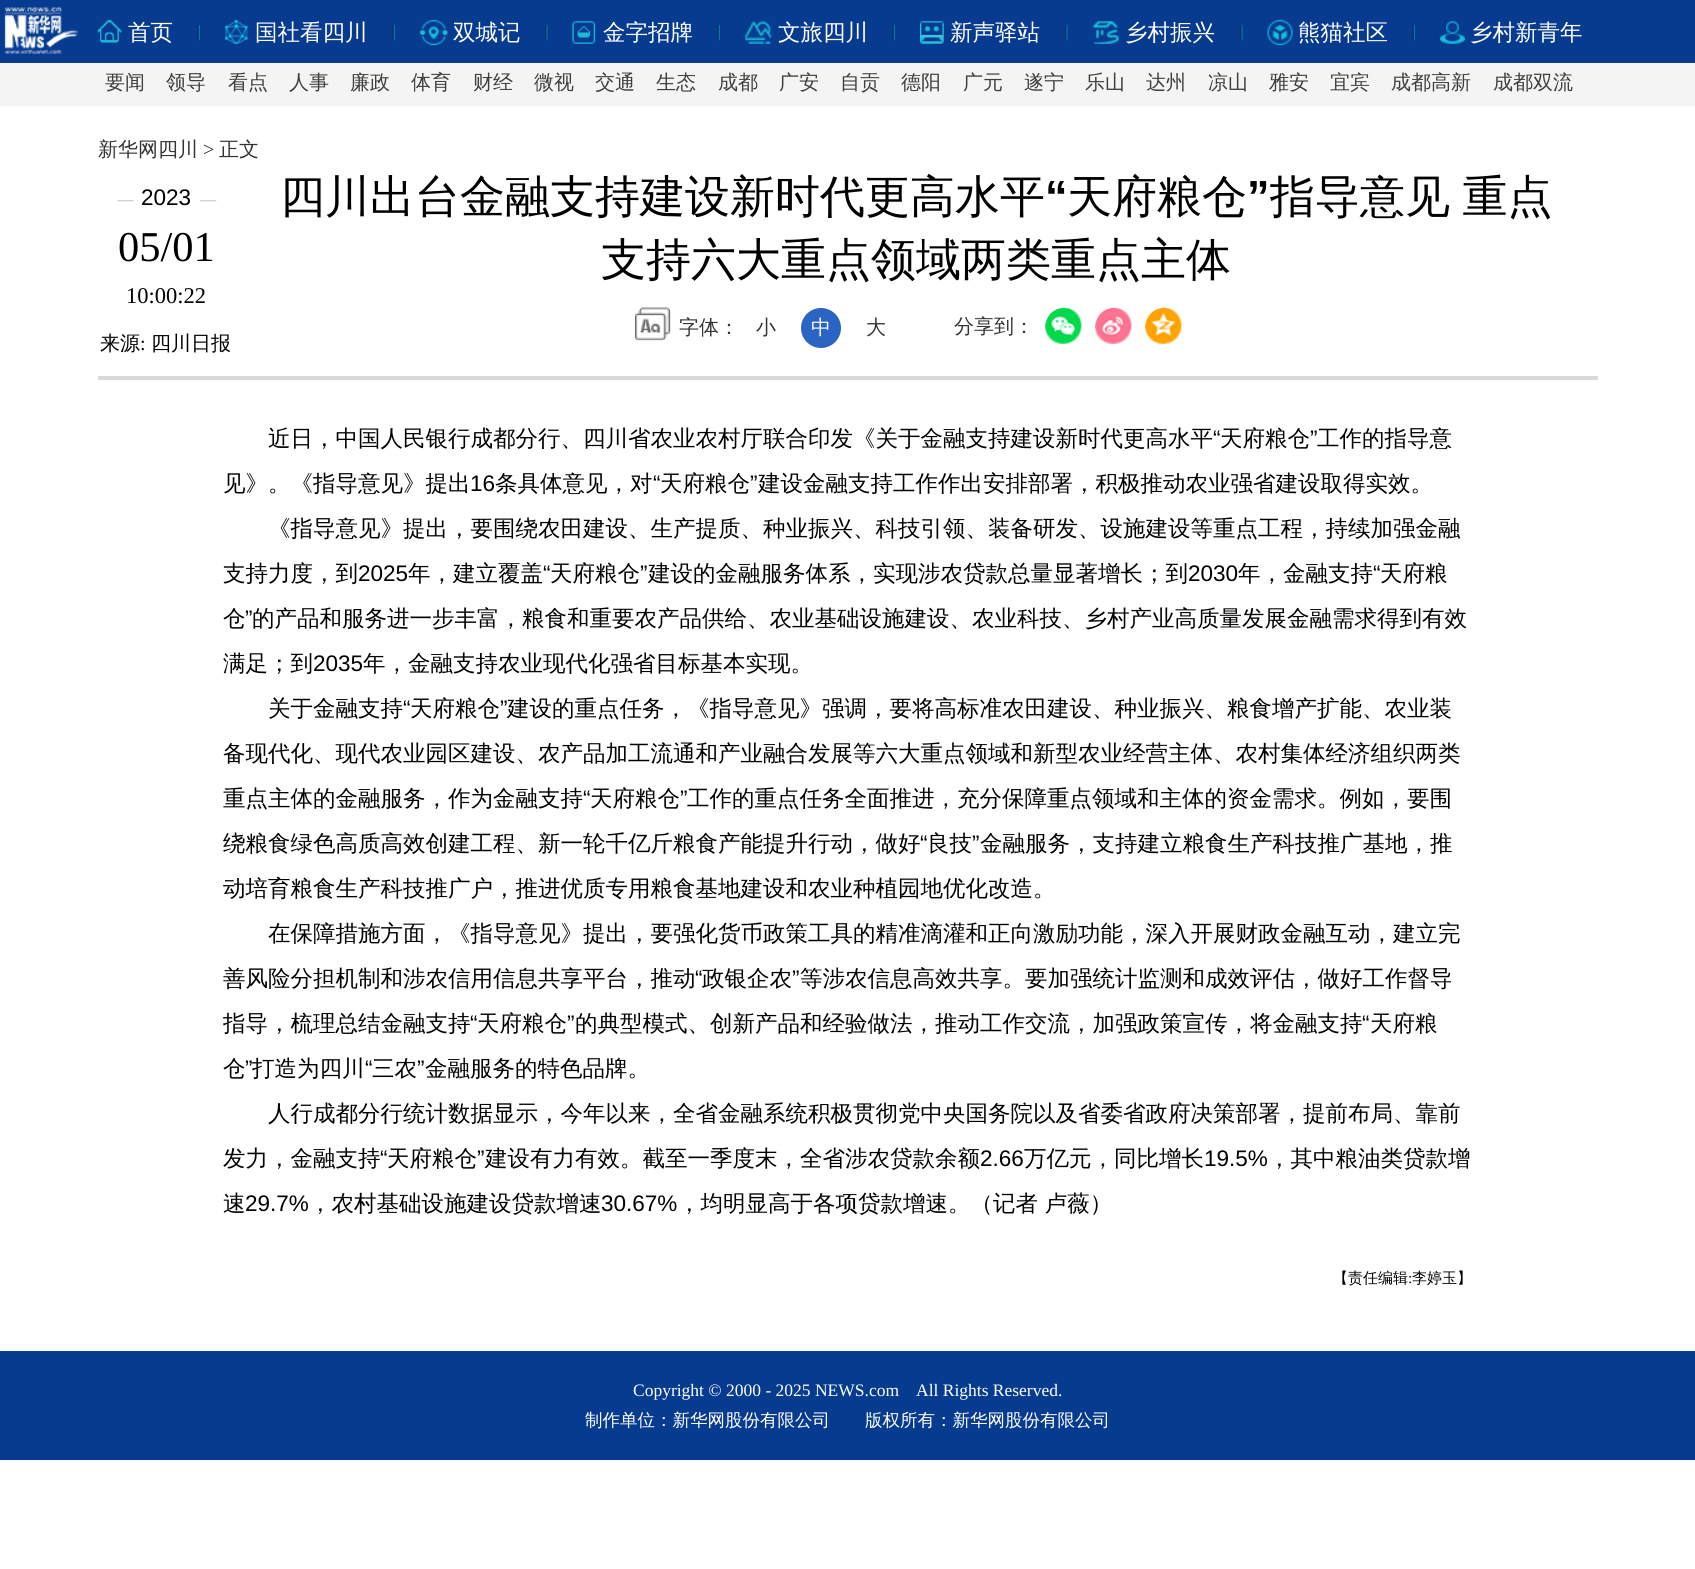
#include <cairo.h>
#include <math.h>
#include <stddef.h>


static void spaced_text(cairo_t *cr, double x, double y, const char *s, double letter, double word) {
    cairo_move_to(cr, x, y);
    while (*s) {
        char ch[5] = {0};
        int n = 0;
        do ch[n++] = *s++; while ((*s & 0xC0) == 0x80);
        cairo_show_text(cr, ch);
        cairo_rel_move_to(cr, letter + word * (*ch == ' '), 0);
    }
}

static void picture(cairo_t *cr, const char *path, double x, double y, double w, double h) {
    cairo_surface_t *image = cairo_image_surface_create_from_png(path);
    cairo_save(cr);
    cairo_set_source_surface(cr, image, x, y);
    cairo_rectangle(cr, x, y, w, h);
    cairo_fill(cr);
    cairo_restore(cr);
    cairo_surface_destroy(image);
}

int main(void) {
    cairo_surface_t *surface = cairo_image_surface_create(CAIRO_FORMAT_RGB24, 1695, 1569);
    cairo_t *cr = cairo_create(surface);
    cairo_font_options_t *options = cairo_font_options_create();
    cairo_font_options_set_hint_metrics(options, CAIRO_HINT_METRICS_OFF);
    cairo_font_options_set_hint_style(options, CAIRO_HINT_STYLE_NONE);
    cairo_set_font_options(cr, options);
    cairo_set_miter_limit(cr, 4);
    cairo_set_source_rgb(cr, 1, 1, 1);
    cairo_paint(cr);
    cairo_set_source_rgb(cr, 0.031, 0.231, 0.565);
    cairo_rectangle(cr, 0, 0, 1695, 63);
    cairo_fill(cr);
    picture(cr, "img1.png", 4, 7, 75, 47);
    picture(cr, "img2.png", 97, 19, 25, 24);
    cairo_select_font_face(cr, "WenQuanYi Zen Hei Medium", CAIRO_FONT_SLANT_NORMAL, CAIRO_FONT_WEIGHT_NORMAL);
    cairo_set_font_size(cr, 22.5);
    cairo_set_source_rgb(cr, 1, 1, 1);
    cairo_move_to(cr, 128, 40);
    cairo_show_text(cr, "首页");
    picture(cr, "img3.png", 197, 25, 3, 16);
    picture(cr, "img4.png", 225, 19, 23, 25);
    cairo_move_to(cr, 255, 40);
    cairo_show_text(cr, "国社看四川");
    picture(cr, "img3.png", 392, 25, 3, 16);
    picture(cr, "img5.png", 420, 19, 28, 27);
    cairo_move_to(cr, 453, 40);
    cairo_show_text(cr, "双城记");
    picture(cr, "img6.png", 545, 25, 3, 16);
    picture(cr, "img7.png", 572, 21, 24, 23);
    cairo_move_to(cr, 603, 40);
    cairo_show_text(cr, "金字招牌");
    picture(cr, "img3.png", 717, 25, 3, 16);
    picture(cr, "img8.png", 745, 21, 27, 23);
    cairo_move_to(cr, 778, 40);
    cairo_show_text(cr, "文旅四川");
    picture(cr, "img3.png", 892, 25, 3, 16);
    picture(cr, "img9.png", 920, 21, 24, 23);
    cairo_move_to(cr, 950, 40);
    cairo_show_text(cr, "新声驿站");
    picture(cr, "img6.png", 1065, 25, 3, 16);
    picture(cr, "img10.png", 1092, 21, 27, 23);
    cairo_move_to(cr, 1125, 40);
    cairo_show_text(cr, "乡村振兴");
    picture(cr, "img6.png", 1240, 25, 3, 16);
    picture(cr, "img11.png", 1267, 19, 26, 27);
    cairo_move_to(cr, 1298, 40);
    cairo_show_text(cr, "熊猫社区");
    picture(cr, "img3.png", 1412, 25, 3, 16);
    picture(cr, "img12.png", 1440, 21, 25, 23);
    cairo_move_to(cr, 1470, 40);
    cairo_show_text(cr, "乡村新青年");
    cairo_set_source_rgb(cr, 0.957, 0.957, 0.957);
    cairo_rectangle(cr, 0, 63, 1695, 43);
    cairo_fill(cr);
    cairo_set_font_size(cr, 20);
    cairo_set_source_rgb(cr, 0.243, 0.243, 0.243);
    cairo_move_to(cr, 105, 89);
    cairo_show_text(cr, "要闻");
    cairo_move_to(cr, 166, 89);
    cairo_show_text(cr, "领导");
    cairo_move_to(cr, 228, 89);
    cairo_show_text(cr, "看点");
    cairo_move_to(cr, 289, 89);
    cairo_show_text(cr, "人事");
    cairo_move_to(cr, 350, 89);
    cairo_show_text(cr, "廉政");
    cairo_move_to(cr, 411, 89);
    cairo_show_text(cr, "体育");
    cairo_move_to(cr, 473, 89);
    cairo_show_text(cr, "财经");
    cairo_move_to(cr, 534, 89);
    cairo_show_text(cr, "微视");
    cairo_move_to(cr, 595, 89);
    cairo_show_text(cr, "交通");
    cairo_move_to(cr, 656, 89);
    cairo_show_text(cr, "生态");
    cairo_move_to(cr, 718, 89);
    cairo_show_text(cr, "成都");
    cairo_move_to(cr, 779, 89);
    cairo_show_text(cr, "广安");
    cairo_move_to(cr, 840, 89);
    cairo_show_text(cr, "自贡");
    cairo_move_to(cr, 901, 89);
    cairo_show_text(cr, "德阳");
    cairo_move_to(cr, 963, 89);
    cairo_show_text(cr, "广元");
    cairo_move_to(cr, 1024, 89);
    cairo_show_text(cr, "遂宁");
    cairo_move_to(cr, 1085, 89);
    cairo_show_text(cr, "乐山");
    cairo_move_to(cr, 1146, 89);
    cairo_show_text(cr, "达州");
    cairo_move_to(cr, 1208, 89);
    cairo_show_text(cr, "凉山");
    cairo_move_to(cr, 1269, 89);
    cairo_show_text(cr, "雅安");
    cairo_move_to(cr, 1330, 89);
    cairo_show_text(cr, "宜宾");
    cairo_move_to(cr, 1391, 89);
    cairo_show_text(cr, "成都高新");
    cairo_move_to(cr, 1493, 89);
    cairo_show_text(cr, "成都双流");
    cairo_set_source_rgb(cr, 0.2, 0.2, 0.2);
    cairo_move_to(cr, 98, 156);
    cairo_show_text(cr, "新华网四川");
    cairo_select_font_face(cr, "Liberation Serif", CAIRO_FONT_SLANT_NORMAL, CAIRO_FONT_WEIGHT_NORMAL);
    cairo_move_to(cr, 203, 156);
    cairo_show_text(cr, ">");
    cairo_select_font_face(cr, "WenQuanYi Zen Hei Medium", CAIRO_FONT_SLANT_NORMAL, CAIRO_FONT_WEIGHT_NORMAL);
    cairo_move_to(cr, 219, 156);
    cairo_show_text(cr, "正文");
    cairo_set_source_rgb(cr, 0.851, 0.851, 0.851);
    cairo_rectangle(cr, 98, 376, 1500, 4);
    cairo_fill(cr);
    picture(cr, "img13.png", 117, 200, 100, 2);
    cairo_select_font_face(cr, "Liberation Sans", CAIRO_FONT_SLANT_NORMAL, CAIRO_FONT_WEIGHT_NORMAL);
    cairo_set_font_size(cr, 22.5);
    cairo_set_source_rgb(cr, 0, 0, 0);
    cairo_move_to(cr, 141, 205);
    cairo_show_text(cr, "2023");
    cairo_select_font_face(cr, "Liberation Serif", CAIRO_FONT_SLANT_NORMAL, CAIRO_FONT_WEIGHT_NORMAL);
    cairo_set_font_size(cr, 42.5);
    cairo_move_to(cr, 118, 261);
    cairo_show_text(cr, "05/01");
    cairo_set_font_size(cr, 22.5);
    cairo_move_to(cr, 126, 303);
    cairo_show_text(cr, "10:00:22");
    cairo_select_font_face(cr, "WenQuanYi Zen Hei Medium", CAIRO_FONT_SLANT_NORMAL, CAIRO_FONT_WEIGHT_NORMAL);
    cairo_set_font_size(cr, 20);
    cairo_move_to(cr, 100, 350);
    cairo_show_text(cr, "来源");
    cairo_select_font_face(cr, "Liberation Serif", CAIRO_FONT_SLANT_NORMAL, CAIRO_FONT_WEIGHT_NORMAL);
    cairo_move_to(cr, 140, 350);
    cairo_show_text(cr, ":");
    cairo_select_font_face(cr, "WenQuanYi Zen Hei Medium", CAIRO_FONT_SLANT_NORMAL, CAIRO_FONT_WEIGHT_NORMAL);
    cairo_move_to(cr, 151, 350);
    cairo_show_text(cr, "四川日报");
    cairo_set_font_size(cr, 45);
    cairo_move_to(cr, 280, 212);
    cairo_show_text(cr, "四川出台金融支持建设新时代更高水平");
    cairo_select_font_face(cr, "Liberation Sans", CAIRO_FONT_SLANT_NORMAL, CAIRO_FONT_WEIGHT_BOLD);
    cairo_move_to(cr, 1045, 212);
    cairo_show_text(cr, "“");
    cairo_select_font_face(cr, "WenQuanYi Zen Hei Medium", CAIRO_FONT_SLANT_NORMAL, CAIRO_FONT_WEIGHT_NORMAL);
    cairo_move_to(cr, 1067, 212);
    cairo_show_text(cr, "天府粮仓");
    cairo_select_font_face(cr, "Liberation Sans", CAIRO_FONT_SLANT_NORMAL, CAIRO_FONT_WEIGHT_BOLD);
    cairo_move_to(cr, 1247, 212);
    cairo_show_text(cr, "”");
    cairo_select_font_face(cr, "WenQuanYi Zen Hei Medium", CAIRO_FONT_SLANT_NORMAL, CAIRO_FONT_WEIGHT_NORMAL);
    spaced_text(cr, 1270, 212, "指导意见 重点", 0, -1);
    cairo_move_to(cr, 601, 275);
    cairo_show_text(cr, "支持六大重点领域两类重点主体");
    picture(cr, "img14.png", 635, 307, 36, 34);
    cairo_set_font_size(cr, 20);
    cairo_set_source_rgb(cr, 0.2, 0.2, 0.2);
    cairo_move_to(cr, 679, 334);
    cairo_show_text(cr, "字体：");
    cairo_move_to(cr, 756, 334);
    cairo_show_text(cr, "小");
    cairo_set_source_rgb(cr, 0.173, 0.392, 0.765);
    cairo_new_path(cr);
    cairo_arc(cr, 821, 328, 20, 0, 2 * M_PI);
    cairo_fill(cr);
    cairo_set_source_rgb(cr, 1, 1, 1);
    cairo_move_to(cr, 811, 334);
    cairo_show_text(cr, "中");
    cairo_set_source_rgb(cr, 0.2, 0.2, 0.2);
    cairo_move_to(cr, 866, 334);
    cairo_show_text(cr, "大");
    cairo_move_to(cr, 954, 333);
    cairo_show_text(cr, "分享到：");
    picture(cr, "img15.png", 1045, 307, 37, 37);
    picture(cr, "img16.png", 1095, 307, 37, 37);
    picture(cr, "img17.png", 1145, 307, 37, 37);
    cairo_set_font_size(cr, 22.5);
    cairo_set_source_rgb(cr, 0, 0, 0);
    cairo_move_to(cr, 268, 446);
    cairo_show_text(cr, "近日，中国人民银行成都分行、四川省农业农村厅联合印发《关于金融支持建设新时代更高水平");
    cairo_select_font_face(cr, "Liberation Sans", CAIRO_FONT_SLANT_NORMAL, CAIRO_FONT_WEIGHT_NORMAL);
    cairo_move_to(cr, 1213, 446);
    cairo_show_text(cr, "“");
    cairo_select_font_face(cr, "WenQuanYi Zen Hei Medium", CAIRO_FONT_SLANT_NORMAL, CAIRO_FONT_WEIGHT_NORMAL);
    cairo_move_to(cr, 1220, 446);
    cairo_show_text(cr, "天府粮仓");
    cairo_select_font_face(cr, "Liberation Sans", CAIRO_FONT_SLANT_NORMAL, CAIRO_FONT_WEIGHT_NORMAL);
    cairo_move_to(cr, 1310, 446);
    cairo_show_text(cr, "”");
    cairo_select_font_face(cr, "WenQuanYi Zen Hei Medium", CAIRO_FONT_SLANT_NORMAL, CAIRO_FONT_WEIGHT_NORMAL);
    cairo_move_to(cr, 1317, 446);
    cairo_show_text(cr, "工作的指导意");
    cairo_move_to(cr, 223, 491);
    cairo_show_text(cr, "见》。《指导意见》提出");
    cairo_select_font_face(cr, "Liberation Sans", CAIRO_FONT_SLANT_NORMAL, CAIRO_FONT_WEIGHT_NORMAL);
    cairo_move_to(cr, 470, 491);
    cairo_show_text(cr, "16");
    cairo_select_font_face(cr, "WenQuanYi Zen Hei Medium", CAIRO_FONT_SLANT_NORMAL, CAIRO_FONT_WEIGHT_NORMAL);
    cairo_move_to(cr, 495, 491);
    cairo_show_text(cr, "条具体意见，对");
    cairo_select_font_face(cr, "Liberation Sans", CAIRO_FONT_SLANT_NORMAL, CAIRO_FONT_WEIGHT_NORMAL);
    cairo_move_to(cr, 653, 491);
    cairo_show_text(cr, "“");
    cairo_select_font_face(cr, "WenQuanYi Zen Hei Medium", CAIRO_FONT_SLANT_NORMAL, CAIRO_FONT_WEIGHT_NORMAL);
    cairo_move_to(cr, 660, 491);
    cairo_show_text(cr, "天府粮仓");
    cairo_select_font_face(cr, "Liberation Sans", CAIRO_FONT_SLANT_NORMAL, CAIRO_FONT_WEIGHT_NORMAL);
    cairo_move_to(cr, 750, 491);
    cairo_show_text(cr, "”");
    cairo_select_font_face(cr, "WenQuanYi Zen Hei Medium", CAIRO_FONT_SLANT_NORMAL, CAIRO_FONT_WEIGHT_NORMAL);
    cairo_move_to(cr, 758, 491);
    cairo_show_text(cr, "建设金融支持工作作出安排部署，积极推动农业强省建设取得实效。");
    cairo_move_to(cr, 268, 536);
    cairo_show_text(cr, "《指导意见》提出，要围绕农田建设、生产提质、种业振兴、科技引领、装备研发、设施建设等重点工程，持续加强金融");
    cairo_move_to(cr, 223, 581);
    cairo_show_text(cr, "支持力度，到");
    cairo_select_font_face(cr, "Liberation Sans", CAIRO_FONT_SLANT_NORMAL, CAIRO_FONT_WEIGHT_NORMAL);
    cairo_move_to(cr, 358, 581);
    cairo_show_text(cr, "2025");
    cairo_select_font_face(cr, "WenQuanYi Zen Hei Medium", CAIRO_FONT_SLANT_NORMAL, CAIRO_FONT_WEIGHT_NORMAL);
    cairo_move_to(cr, 408, 581);
    cairo_show_text(cr, "年，建立覆盖");
    cairo_select_font_face(cr, "Liberation Sans", CAIRO_FONT_SLANT_NORMAL, CAIRO_FONT_WEIGHT_NORMAL);
    cairo_move_to(cr, 543, 581);
    cairo_show_text(cr, "“");
    cairo_select_font_face(cr, "WenQuanYi Zen Hei Medium", CAIRO_FONT_SLANT_NORMAL, CAIRO_FONT_WEIGHT_NORMAL);
    cairo_move_to(cr, 550, 581);
    cairo_show_text(cr, "天府粮仓");
    cairo_select_font_face(cr, "Liberation Sans", CAIRO_FONT_SLANT_NORMAL, CAIRO_FONT_WEIGHT_NORMAL);
    cairo_move_to(cr, 640, 581);
    cairo_show_text(cr, "”");
    cairo_select_font_face(cr, "WenQuanYi Zen Hei Medium", CAIRO_FONT_SLANT_NORMAL, CAIRO_FONT_WEIGHT_NORMAL);
    cairo_move_to(cr, 648, 581);
    cairo_show_text(cr, "建设的金融服务体系，实现涉农贷款总量显著增长；到");
    cairo_select_font_face(cr, "Liberation Sans", CAIRO_FONT_SLANT_NORMAL, CAIRO_FONT_WEIGHT_NORMAL);
    cairo_move_to(cr, 1188, 581);
    cairo_show_text(cr, "2030");
    cairo_select_font_face(cr, "WenQuanYi Zen Hei Medium", CAIRO_FONT_SLANT_NORMAL, CAIRO_FONT_WEIGHT_NORMAL);
    cairo_move_to(cr, 1238, 581);
    cairo_show_text(cr, "年，金融支持");
    cairo_select_font_face(cr, "Liberation Sans", CAIRO_FONT_SLANT_NORMAL, CAIRO_FONT_WEIGHT_NORMAL);
    cairo_move_to(cr, 1373, 581);
    cairo_show_text(cr, "“");
    cairo_select_font_face(cr, "WenQuanYi Zen Hei Medium", CAIRO_FONT_SLANT_NORMAL, CAIRO_FONT_WEIGHT_NORMAL);
    cairo_move_to(cr, 1380, 581);
    cairo_show_text(cr, "天府粮");
    cairo_move_to(cr, 223, 626);
    cairo_show_text(cr, "仓");
    cairo_select_font_face(cr, "Liberation Sans", CAIRO_FONT_SLANT_NORMAL, CAIRO_FONT_WEIGHT_NORMAL);
    cairo_move_to(cr, 245, 626);
    cairo_show_text(cr, "”");
    cairo_select_font_face(cr, "WenQuanYi Zen Hei Medium", CAIRO_FONT_SLANT_NORMAL, CAIRO_FONT_WEIGHT_NORMAL);
    cairo_move_to(cr, 252, 626);
    cairo_show_text(cr, "的产品和服务进一步丰富，粮食和重要农产品供给、农业基础设施建设、农业科技、乡村产业高质量发展金融需求得到有效");
    cairo_move_to(cr, 223, 671);
    cairo_show_text(cr, "满足；到");
    cairo_select_font_face(cr, "Liberation Sans", CAIRO_FONT_SLANT_NORMAL, CAIRO_FONT_WEIGHT_NORMAL);
    cairo_move_to(cr, 313, 671);
    cairo_show_text(cr, "2035");
    cairo_select_font_face(cr, "WenQuanYi Zen Hei Medium", CAIRO_FONT_SLANT_NORMAL, CAIRO_FONT_WEIGHT_NORMAL);
    cairo_move_to(cr, 363, 671);
    cairo_show_text(cr, "年，金融支持农业现代化强省目标基本实现。");
    cairo_move_to(cr, 268, 716);
    cairo_show_text(cr, "关于金融支持");
    cairo_select_font_face(cr, "Liberation Sans", CAIRO_FONT_SLANT_NORMAL, CAIRO_FONT_WEIGHT_NORMAL);
    cairo_move_to(cr, 403, 716);
    cairo_show_text(cr, "“");
    cairo_select_font_face(cr, "WenQuanYi Zen Hei Medium", CAIRO_FONT_SLANT_NORMAL, CAIRO_FONT_WEIGHT_NORMAL);
    cairo_move_to(cr, 410, 716);
    cairo_show_text(cr, "天府粮仓");
    cairo_select_font_face(cr, "Liberation Sans", CAIRO_FONT_SLANT_NORMAL, CAIRO_FONT_WEIGHT_NORMAL);
    cairo_move_to(cr, 500, 716);
    cairo_show_text(cr, "”");
    cairo_select_font_face(cr, "WenQuanYi Zen Hei Medium", CAIRO_FONT_SLANT_NORMAL, CAIRO_FONT_WEIGHT_NORMAL);
    cairo_move_to(cr, 507, 716);
    cairo_show_text(cr, "建设的重点任务，《指导意见》强调，要将高标准农田建设、种业振兴、粮食增产扩能、农业装");
    cairo_move_to(cr, 223, 761);
    cairo_show_text(cr, "备现代化、现代农业园区建设、农产品加工流通和产业融合发展等六大重点领域和新型农业经营主体、农村集体经济组织两类");
    cairo_move_to(cr, 223, 806);
    cairo_show_text(cr, "重点主体的金融服务，作为金融支持");
    cairo_select_font_face(cr, "Liberation Sans", CAIRO_FONT_SLANT_NORMAL, CAIRO_FONT_WEIGHT_NORMAL);
    cairo_move_to(cr, 583, 806);
    cairo_show_text(cr, "“");
    cairo_select_font_face(cr, "WenQuanYi Zen Hei Medium", CAIRO_FONT_SLANT_NORMAL, CAIRO_FONT_WEIGHT_NORMAL);
    cairo_move_to(cr, 590, 806);
    cairo_show_text(cr, "天府粮仓");
    cairo_select_font_face(cr, "Liberation Sans", CAIRO_FONT_SLANT_NORMAL, CAIRO_FONT_WEIGHT_NORMAL);
    cairo_move_to(cr, 680, 806);
    cairo_show_text(cr, "”");
    cairo_select_font_face(cr, "WenQuanYi Zen Hei Medium", CAIRO_FONT_SLANT_NORMAL, CAIRO_FONT_WEIGHT_NORMAL);
    cairo_move_to(cr, 687, 806);
    cairo_show_text(cr, "工作的重点任务全面推进，充分保障重点领域和主体的资金需求。例如，要围");
    cairo_move_to(cr, 223, 851);
    cairo_show_text(cr, "绕粮食绿色高质高效创建工程、新一轮千亿斤粮食产能提升行动，做好");
    cairo_select_font_face(cr, "Liberation Sans", CAIRO_FONT_SLANT_NORMAL, CAIRO_FONT_WEIGHT_NORMAL);
    cairo_move_to(cr, 920, 851);
    cairo_show_text(cr, "“");
    cairo_select_font_face(cr, "WenQuanYi Zen Hei Medium", CAIRO_FONT_SLANT_NORMAL, CAIRO_FONT_WEIGHT_NORMAL);
    cairo_move_to(cr, 927, 851);
    cairo_show_text(cr, "良技");
    cairo_select_font_face(cr, "Liberation Sans", CAIRO_FONT_SLANT_NORMAL, CAIRO_FONT_WEIGHT_NORMAL);
    cairo_move_to(cr, 972, 851);
    cairo_show_text(cr, "”");
    cairo_select_font_face(cr, "WenQuanYi Zen Hei Medium", CAIRO_FONT_SLANT_NORMAL, CAIRO_FONT_WEIGHT_NORMAL);
    cairo_move_to(cr, 980, 851);
    cairo_show_text(cr, "金融服务，支持建立粮食生产科技推广基地，推");
    cairo_move_to(cr, 223, 896);
    cairo_show_text(cr, "动培育粮食生产科技推广户，推进优质专用粮食基地建设和农业种植园地优化改造。");
    cairo_move_to(cr, 268, 941);
    cairo_show_text(cr, "在保障措施方面，《指导意见》提出，要强化货币政策工具的精准滴灌和正向激励功能，深入开展财政金融互动，建立完");
    cairo_move_to(cr, 223, 986);
    cairo_show_text(cr, "善风险分担机制和涉农信用信息共享平台，推动");
    cairo_select_font_face(cr, "Liberation Sans", CAIRO_FONT_SLANT_NORMAL, CAIRO_FONT_WEIGHT_NORMAL);
    cairo_move_to(cr, 695, 986);
    cairo_show_text(cr, "“");
    cairo_select_font_face(cr, "WenQuanYi Zen Hei Medium", CAIRO_FONT_SLANT_NORMAL, CAIRO_FONT_WEIGHT_NORMAL);
    cairo_move_to(cr, 702, 986);
    cairo_show_text(cr, "政银企农");
    cairo_select_font_face(cr, "Liberation Sans", CAIRO_FONT_SLANT_NORMAL, CAIRO_FONT_WEIGHT_NORMAL);
    cairo_move_to(cr, 792, 986);
    cairo_show_text(cr, "”");
    cairo_select_font_face(cr, "WenQuanYi Zen Hei Medium", CAIRO_FONT_SLANT_NORMAL, CAIRO_FONT_WEIGHT_NORMAL);
    cairo_move_to(cr, 800, 986);
    cairo_show_text(cr, "等涉农信息高效共享。要加强统计监测和成效评估，做好工作督导");
    cairo_save(cr);
    cairo_rectangle(cr, 223, 416, 1250, 839);
    cairo_clip(cr);
    cairo_move_to(cr, 223, 1031);
    cairo_show_text(cr, "指导，梳理总结金融支持");
    cairo_restore(cr);
    cairo_select_font_face(cr, "Liberation Sans", CAIRO_FONT_SLANT_NORMAL, CAIRO_FONT_WEIGHT_NORMAL);
    cairo_move_to(cr, 470, 1031);
    cairo_show_text(cr, "“");
    cairo_select_font_face(cr, "WenQuanYi Zen Hei Medium", CAIRO_FONT_SLANT_NORMAL, CAIRO_FONT_WEIGHT_NORMAL);
    cairo_move_to(cr, 477, 1031);
    cairo_show_text(cr, "天府粮仓");
    cairo_select_font_face(cr, "Liberation Sans", CAIRO_FONT_SLANT_NORMAL, CAIRO_FONT_WEIGHT_NORMAL);
    cairo_move_to(cr, 567, 1031);
    cairo_show_text(cr, "”");
    cairo_select_font_face(cr, "WenQuanYi Zen Hei Medium", CAIRO_FONT_SLANT_NORMAL, CAIRO_FONT_WEIGHT_NORMAL);
    cairo_move_to(cr, 575, 1031);
    cairo_show_text(cr, "的典型模式、创新产品和经验做法，推动工作交流，加强政策宣传，将金融支持");
    cairo_select_font_face(cr, "Liberation Sans", CAIRO_FONT_SLANT_NORMAL, CAIRO_FONT_WEIGHT_NORMAL);
    cairo_move_to(cr, 1362, 1031);
    cairo_show_text(cr, "“");
    cairo_select_font_face(cr, "WenQuanYi Zen Hei Medium", CAIRO_FONT_SLANT_NORMAL, CAIRO_FONT_WEIGHT_NORMAL);
    cairo_move_to(cr, 1370, 1031);
    cairo_show_text(cr, "天府粮");
    cairo_move_to(cr, 223, 1076);
    cairo_show_text(cr, "仓");
    cairo_select_font_face(cr, "Liberation Sans", CAIRO_FONT_SLANT_NORMAL, CAIRO_FONT_WEIGHT_NORMAL);
    cairo_move_to(cr, 245, 1076);
    cairo_show_text(cr, "”");
    cairo_select_font_face(cr, "WenQuanYi Zen Hei Medium", CAIRO_FONT_SLANT_NORMAL, CAIRO_FONT_WEIGHT_NORMAL);
    cairo_move_to(cr, 252, 1076);
    cairo_show_text(cr, "打造为四川");
    cairo_select_font_face(cr, "Liberation Sans", CAIRO_FONT_SLANT_NORMAL, CAIRO_FONT_WEIGHT_NORMAL);
    cairo_move_to(cr, 365, 1076);
    cairo_show_text(cr, "“");
    cairo_select_font_face(cr, "WenQuanYi Zen Hei Medium", CAIRO_FONT_SLANT_NORMAL, CAIRO_FONT_WEIGHT_NORMAL);
    cairo_move_to(cr, 372, 1076);
    cairo_show_text(cr, "三农");
    cairo_select_font_face(cr, "Liberation Sans", CAIRO_FONT_SLANT_NORMAL, CAIRO_FONT_WEIGHT_NORMAL);
    cairo_move_to(cr, 417, 1076);
    cairo_show_text(cr, "”");
    cairo_select_font_face(cr, "WenQuanYi Zen Hei Medium", CAIRO_FONT_SLANT_NORMAL, CAIRO_FONT_WEIGHT_NORMAL);
    cairo_move_to(cr, 425, 1076);
    cairo_show_text(cr, "金融服务的特色品牌。");
    cairo_move_to(cr, 268, 1121);
    cairo_show_text(cr, "人行成都分行统计数据显示，今年以来，全省金融系统积极贯彻党中央国务院以及省委省政府决策部署，提前布局、靠前");
    cairo_move_to(cr, 223, 1166);
    cairo_show_text(cr, "发力，金融支持");
    cairo_select_font_face(cr, "Liberation Sans", CAIRO_FONT_SLANT_NORMAL, CAIRO_FONT_WEIGHT_NORMAL);
    cairo_move_to(cr, 380, 1166);
    cairo_show_text(cr, "“");
    cairo_select_font_face(cr, "WenQuanYi Zen Hei Medium", CAIRO_FONT_SLANT_NORMAL, CAIRO_FONT_WEIGHT_NORMAL);
    cairo_move_to(cr, 387, 1166);
    cairo_show_text(cr, "天府粮仓");
    cairo_select_font_face(cr, "Liberation Sans", CAIRO_FONT_SLANT_NORMAL, CAIRO_FONT_WEIGHT_NORMAL);
    cairo_move_to(cr, 477, 1166);
    cairo_show_text(cr, "”");
    cairo_select_font_face(cr, "WenQuanYi Zen Hei Medium", CAIRO_FONT_SLANT_NORMAL, CAIRO_FONT_WEIGHT_NORMAL);
    cairo_move_to(cr, 485, 1166);
    cairo_show_text(cr, "建设有力有效。截至一季度末，全省涉农贷款余额");
    cairo_select_font_face(cr, "Liberation Sans", CAIRO_FONT_SLANT_NORMAL, CAIRO_FONT_WEIGHT_NORMAL);
    cairo_move_to(cr, 980, 1166);
    cairo_show_text(cr, "2.66");
    cairo_select_font_face(cr, "WenQuanYi Zen Hei Medium", CAIRO_FONT_SLANT_NORMAL, CAIRO_FONT_WEIGHT_NORMAL);
    cairo_move_to(cr, 1024, 1166);
    cairo_show_text(cr, "万亿元，同比增长");
    cairo_select_font_face(cr, "Liberation Sans", CAIRO_FONT_SLANT_NORMAL, CAIRO_FONT_WEIGHT_NORMAL);
    cairo_move_to(cr, 1204, 1166);
    cairo_show_text(cr, "19.5%");
    cairo_select_font_face(cr, "WenQuanYi Zen Hei Medium", CAIRO_FONT_SLANT_NORMAL, CAIRO_FONT_WEIGHT_NORMAL);
    cairo_move_to(cr, 1268, 1166);
    cairo_show_text(cr, "，其中粮油类贷款增");
    cairo_move_to(cr, 223, 1211);
    cairo_show_text(cr, "速");
    cairo_select_font_face(cr, "Liberation Sans", CAIRO_FONT_SLANT_NORMAL, CAIRO_FONT_WEIGHT_NORMAL);
    cairo_move_to(cr, 245, 1211);
    cairo_show_text(cr, "29.7%");
    cairo_select_font_face(cr, "WenQuanYi Zen Hei Medium", CAIRO_FONT_SLANT_NORMAL, CAIRO_FONT_WEIGHT_NORMAL);
    cairo_move_to(cr, 309, 1211);
    cairo_show_text(cr, "，农村基础设施建设贷款增速");
    cairo_select_font_face(cr, "Liberation Sans", CAIRO_FONT_SLANT_NORMAL, CAIRO_FONT_WEIGHT_NORMAL);
    cairo_move_to(cr, 601, 1211);
    cairo_show_text(cr, "30.67%");
    cairo_select_font_face(cr, "WenQuanYi Zen Hei Medium", CAIRO_FONT_SLANT_NORMAL, CAIRO_FONT_WEIGHT_NORMAL);
    cairo_move_to(cr, 678, 1211);
    cairo_show_text(cr, "，均明显高于各项贷款增速。（记者 卢薇）");
    cairo_set_font_size(cr, 15);
    cairo_move_to(cr, 1333, 1283);
    cairo_show_text(cr, "【责任编辑");
    cairo_select_font_face(cr, "Liberation Serif", CAIRO_FONT_SLANT_NORMAL, CAIRO_FONT_WEIGHT_NORMAL);
    cairo_move_to(cr, 1408, 1283);
    cairo_show_text(cr, ":");
    cairo_select_font_face(cr, "WenQuanYi Zen Hei Medium", CAIRO_FONT_SLANT_NORMAL, CAIRO_FONT_WEIGHT_NORMAL);
    cairo_move_to(cr, 1412, 1283);
    cairo_show_text(cr, "李婷玉】");
    cairo_set_source_rgb(cr, 0.031, 0.231, 0.565);
    cairo_rectangle(cr, 0, 1351, 1695, 109);
    cairo_fill(cr);
    cairo_select_font_face(cr, "Liberation Serif", CAIRO_FONT_SLANT_NORMAL, CAIRO_FONT_WEIGHT_NORMAL);
    cairo_set_font_size(cr, 17.5);
    cairo_set_source_rgb(cr, 1, 1, 1);
    cairo_move_to(cr, 633, 1396);
    cairo_show_text(cr, "Copyright © 2000 - 2025 NEWS.com");
    cairo_move_to(cr, 916, 1396);
    cairo_show_text(cr, "All Rights Reserved.");
    cairo_select_font_face(cr, "WenQuanYi Zen Hei Medium", CAIRO_FONT_SLANT_NORMAL, CAIRO_FONT_WEIGHT_NORMAL);
    cairo_move_to(cr, 585, 1426);
    cairo_show_text(cr, "制作单位：新华网股份有限公司　　版权所有：新华网股份有限公司");
    cairo_surface_write_to_png(surface, "page.png");
    cairo_font_options_destroy(options);
    cairo_destroy(cr);
    cairo_surface_destroy(surface);
    return 0;
}
